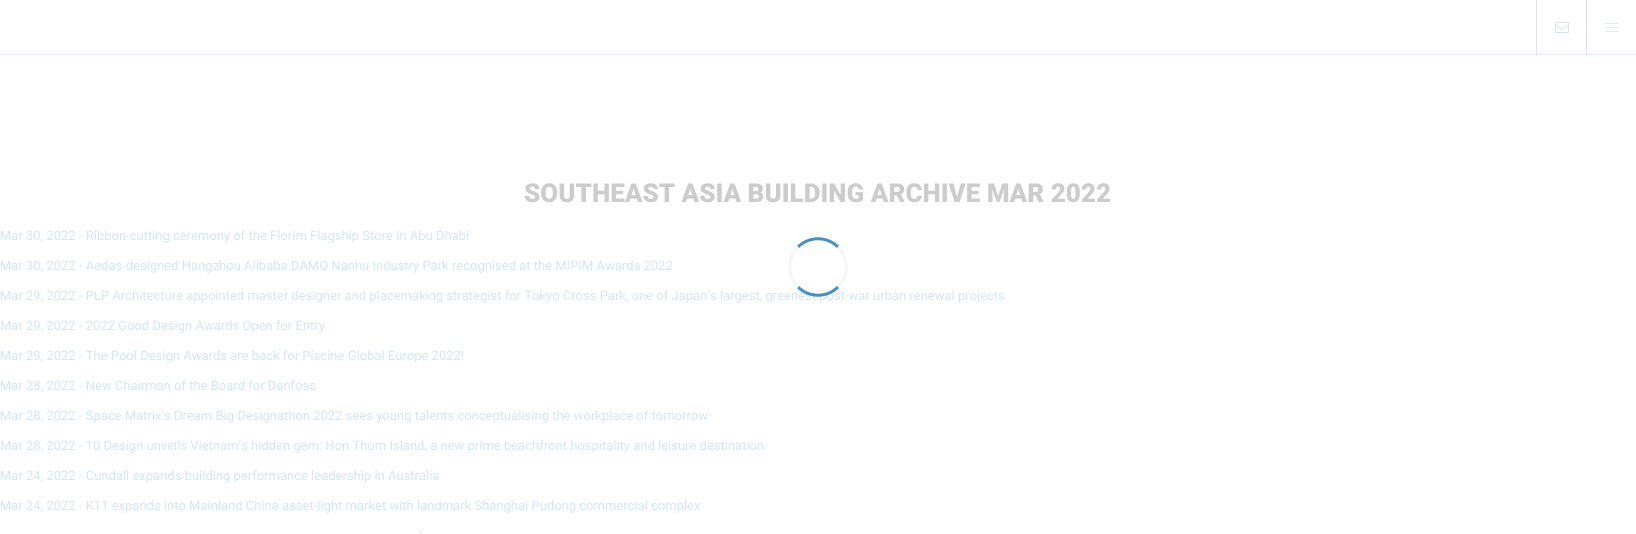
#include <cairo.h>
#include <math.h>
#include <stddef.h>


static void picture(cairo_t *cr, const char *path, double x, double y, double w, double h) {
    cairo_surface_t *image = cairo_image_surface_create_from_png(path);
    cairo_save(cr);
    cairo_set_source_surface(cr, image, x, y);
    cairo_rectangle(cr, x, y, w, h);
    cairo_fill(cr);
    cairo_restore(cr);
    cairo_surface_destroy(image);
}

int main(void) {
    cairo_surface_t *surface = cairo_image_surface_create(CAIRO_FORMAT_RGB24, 1636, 534);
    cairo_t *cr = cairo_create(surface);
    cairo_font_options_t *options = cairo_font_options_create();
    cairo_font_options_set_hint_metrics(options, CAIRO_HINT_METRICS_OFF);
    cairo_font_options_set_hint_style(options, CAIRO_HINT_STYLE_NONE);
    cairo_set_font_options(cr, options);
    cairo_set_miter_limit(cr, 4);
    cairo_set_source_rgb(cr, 1, 1, 1);
    cairo_paint(cr);
    cairo_set_source_rgb(cr, 0.886, 0.929, 0.965);
    cairo_rectangle(cr, 0, 54, 1636, 1);
    cairo_fill(cr);
    cairo_set_source_rgb(cr, 0.831, 0.902, 0.945);
    cairo_rectangle(cr, 1536, 0, 1, 55);
    cairo_fill(cr);
    picture(cr, "img1.png", 1555, 22, 14, 11);
    cairo_rectangle(cr, 1586, 0, 1, 55);
    cairo_fill(cr);
    cairo_set_source_rgb(cr, 0.886, 0.929, 0.965);
    cairo_rectangle(cr, 1605, 23, 14, 1);
    cairo_fill(cr);
    cairo_rectangle(cr, 1605, 27, 14, 1);
    cairo_fill(cr);
    cairo_rectangle(cr, 1605, 31, 14, 1);
    cairo_fill(cr);
    cairo_select_font_face(cr, "Roboto Black", CAIRO_FONT_SLANT_NORMAL, CAIRO_FONT_WEIGHT_NORMAL);
    cairo_set_font_size(cr, 26);
    cairo_set_source_rgb(cr, 0.8, 0.8, 0.8);
    cairo_move_to(cr, 524, 202);
    cairo_show_text(cr, "SOUTHEAST ASIA BUILDING ARCHIVE MAR 2022");
    cairo_select_font_face(cr, "Roboto", CAIRO_FONT_SLANT_NORMAL, CAIRO_FONT_WEIGHT_NORMAL);
    cairo_set_font_size(cr, 13);
    cairo_set_source_rgb(cr, 0.831, 0.902, 0.945);
    cairo_move_to(cr, 0, 240);
    cairo_show_text(cr, "Mar 30, 2022 - Ribbon-cutting ceremony of the Florim Flagship Store in Abu Dhabi");
    cairo_move_to(cr, 0, 270);
    cairo_show_text(cr, "Mar 30, 2022 - Aedas-designed Hangzhou Alibaba DAMO Nanhu Industry Park recognised at the MIPIM Awards 2022");
    cairo_move_to(cr, 0, 300);
    cairo_show_text(cr, "Mar 29, 2022 - PLP Architecture appointed master designer and placemaking strategist for Tokyo Cross Park, one of Japan’s largest, greenest post-war urban renewal projects");
    cairo_move_to(cr, 0, 330);
    cairo_show_text(cr, "Mar 29, 2022 - 2022 Good Design Awards Open for Entry");
    cairo_move_to(cr, 0, 360);
    cairo_show_text(cr, "Mar 29, 2022 - The Pool Design Awards are back for Piscine Global Europe 2022!");
    cairo_move_to(cr, 0, 390);
    cairo_show_text(cr, "Mar 28, 2022 - New Chairman of the Board for Danfoss");
    cairo_move_to(cr, 0, 420);
    cairo_show_text(cr, "Mar 28, 2022 - Space Matrix’s Dream Big Designathon 2022 sees young talents conceptualising the workplace of tomorrow");
    cairo_move_to(cr, 0, 450);
    cairo_show_text(cr, "Mar 28, 2022 - 10 Design unveils Vietnam’s hidden gem: Hon Thom Island, a new prime beachfront hospitality and leisure destination");
    cairo_move_to(cr, 0, 480);
    cairo_show_text(cr, "Mar 24, 2022 - Cundall expands building performance leadership in Australia");
    cairo_move_to(cr, 0, 510);
    cairo_show_text(cr, "Mar 24, 2022 - K11 expands into Mainland China asset-light market with landmark Shanghai Pudong commercial complex");
    cairo_move_to(cr, 419, 540);
    cairo_show_text(cr, "’");
    cairo_new_path(cr);
    cairo_move_to(cr, 798, 247);
    cairo_curve_to(cr, 809, 236, 827, 236, 838, 247);
    cairo_set_source_rgb(cr, 0.282, 0.561, 0.769);
    cairo_set_line_width(cr, 3);
    cairo_stroke(cr);
    cairo_new_path(cr);
    cairo_move_to(cr, 838, 247);
    cairo_curve_to(cr, 849, 258, 849, 276, 838, 287);
    cairo_set_source_rgb(cr, 0.961, 0.961, 0.961);
    cairo_stroke(cr);
    cairo_new_path(cr);
    cairo_move_to(cr, 838, 287);
    cairo_curve_to(cr, 827, 298, 809, 298, 798, 287);
    cairo_set_source_rgba(cr, 0.102, 0.451, 0.71, 0.8);
    cairo_stroke(cr);
    cairo_new_path(cr);
    cairo_move_to(cr, 798, 287);
    cairo_curve_to(cr, 787, 276, 787, 258, 798, 247);
    cairo_set_source_rgb(cr, 0.961, 0.961, 0.961);
    cairo_stroke(cr);
    cairo_surface_write_to_png(surface, "page.png");
    cairo_font_options_destroy(options);
    cairo_destroy(cr);
    cairo_surface_destroy(surface);
    return 0;
}
